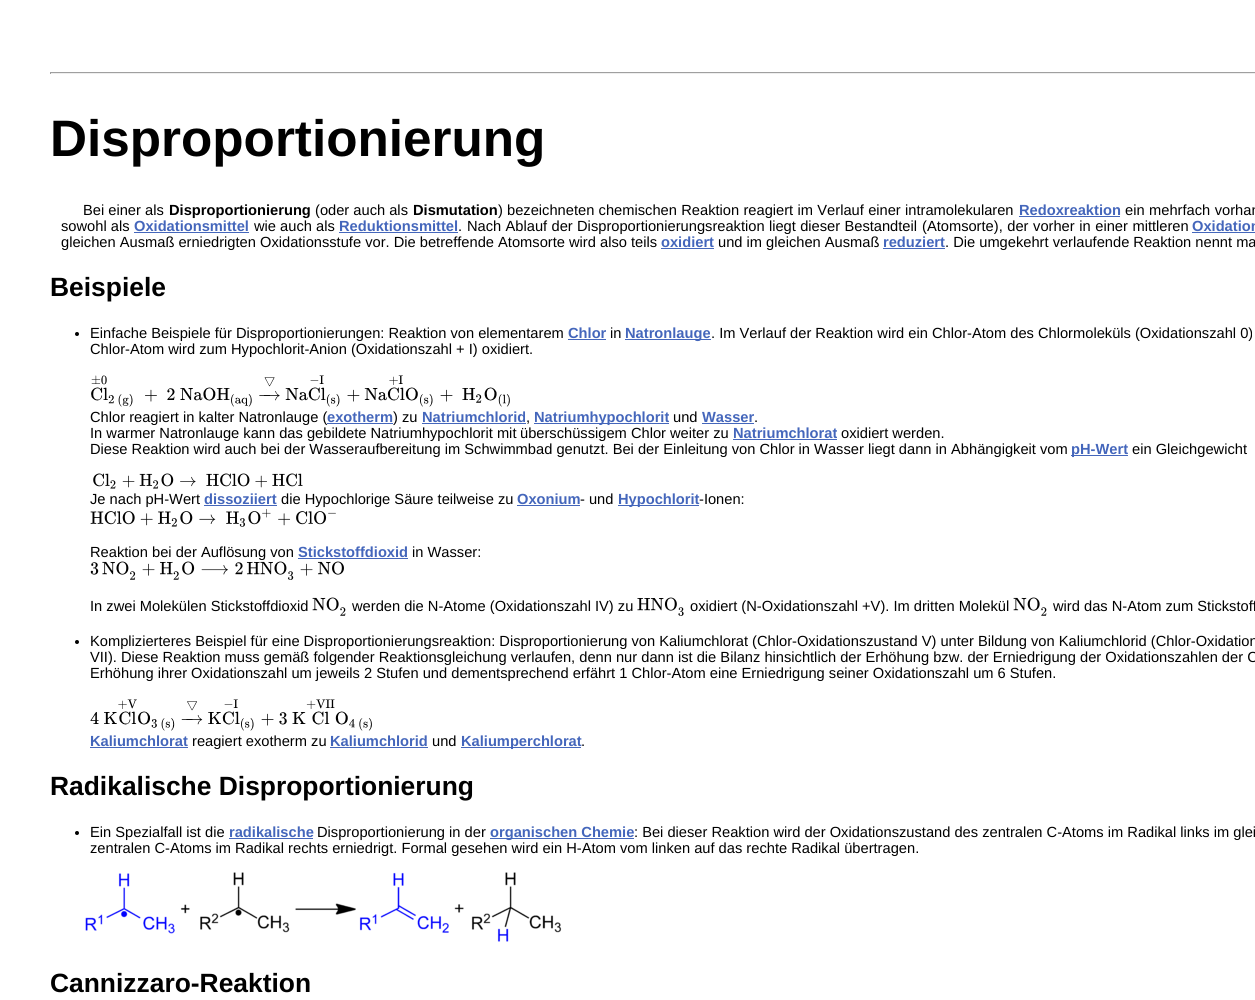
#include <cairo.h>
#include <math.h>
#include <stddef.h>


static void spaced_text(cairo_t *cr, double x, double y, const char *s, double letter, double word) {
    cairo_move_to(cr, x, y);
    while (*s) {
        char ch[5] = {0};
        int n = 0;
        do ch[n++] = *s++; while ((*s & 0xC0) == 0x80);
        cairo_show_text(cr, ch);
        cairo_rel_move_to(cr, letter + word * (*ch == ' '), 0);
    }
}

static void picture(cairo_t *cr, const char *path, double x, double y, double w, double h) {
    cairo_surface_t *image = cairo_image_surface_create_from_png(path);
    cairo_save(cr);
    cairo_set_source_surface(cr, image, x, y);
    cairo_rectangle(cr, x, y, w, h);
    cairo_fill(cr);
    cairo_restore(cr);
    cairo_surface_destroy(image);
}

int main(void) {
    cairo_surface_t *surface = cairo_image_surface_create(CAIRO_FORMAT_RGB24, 1255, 1000);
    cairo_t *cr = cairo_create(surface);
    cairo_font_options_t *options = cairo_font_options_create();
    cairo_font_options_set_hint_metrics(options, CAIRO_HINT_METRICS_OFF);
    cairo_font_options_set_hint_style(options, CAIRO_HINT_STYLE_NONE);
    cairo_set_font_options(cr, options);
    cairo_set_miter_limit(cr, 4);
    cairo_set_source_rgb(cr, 1, 1, 1);
    cairo_paint(cr);
    cairo_set_source_rgb(cr, 0.624, 0.624, 0.624);
    cairo_rectangle(cr, 50, 72, 1205, 1);
    cairo_fill(cr);
    cairo_set_source_rgb(cr, 0.933, 0.933, 0.933);
    cairo_rectangle(cr, 50, 73, 1205, 1);
    cairo_fill(cr);
    cairo_set_source_rgb(cr, 0.624, 0.624, 0.624);
    cairo_rectangle(cr, 50, 72, 1, 2);
    cairo_fill(cr);
    cairo_select_font_face(cr, "Liberation Sans", CAIRO_FONT_SLANT_NORMAL, CAIRO_FONT_WEIGHT_BOLD);
    cairo_set_font_size(cr, 51.25);
    cairo_set_source_rgb(cr, 0, 0, 0);
    cairo_move_to(cr, 50, 156);
    cairo_show_text(cr, "Disproportionierung");
    cairo_select_font_face(cr, "Liberation Sans", CAIRO_FONT_SLANT_NORMAL, CAIRO_FONT_WEIGHT_NORMAL);
    cairo_set_font_size(cr, 14.67);
    cairo_move_to(cr, 83, 215);
    cairo_show_text(cr, "Bei einer als");
    cairo_select_font_face(cr, "Liberation Sans", CAIRO_FONT_SLANT_NORMAL, CAIRO_FONT_WEIGHT_BOLD);
    cairo_move_to(cr, 169, 215);
    cairo_show_text(cr, "Disproportionierung");
    cairo_select_font_face(cr, "Liberation Sans", CAIRO_FONT_SLANT_NORMAL, CAIRO_FONT_WEIGHT_NORMAL);
    cairo_move_to(cr, 315, 215);
    cairo_show_text(cr, "(oder auch als");
    cairo_select_font_face(cr, "Liberation Sans", CAIRO_FONT_SLANT_NORMAL, CAIRO_FONT_WEIGHT_BOLD);
    cairo_move_to(cr, 413, 215);
    cairo_show_text(cr, "Dismutation");
    cairo_select_font_face(cr, "Liberation Sans", CAIRO_FONT_SLANT_NORMAL, CAIRO_FONT_WEIGHT_NORMAL);
    cairo_move_to(cr, 498, 215);
    cairo_show_text(cr, ")");
    spaced_text(cr, 507, 215, "bezeichneten chemischen Reaktion reagiert im Verlauf einer intramolekularen", 0, 0.25);
    cairo_select_font_face(cr, "Liberation Sans", CAIRO_FONT_SLANT_NORMAL, CAIRO_FONT_WEIGHT_BOLD);
    cairo_set_source_rgb(cr, 0.267, 0.4, 0.733);
    cairo_move_to(cr, 1019, 215);
    cairo_show_text(cr, "Redoxreaktion");
    cairo_rectangle(cr, 1019, 216, 101, 1);
    cairo_fill(cr);
    cairo_select_font_face(cr, "Liberation Sans", CAIRO_FONT_SLANT_NORMAL, CAIRO_FONT_WEIGHT_NORMAL);
    cairo_set_source_rgb(cr, 0, 0, 0);
    cairo_move_to(cr, 1125, 215);
    cairo_show_text(cr, "ein");
    spaced_text(cr, 1149, 215, "mehrfach vorhan", 0, 0.5);
    cairo_move_to(cr, 61, 231);
    cairo_show_text(cr, "sowohl als");
    cairo_select_font_face(cr, "Liberation Sans", CAIRO_FONT_SLANT_NORMAL, CAIRO_FONT_WEIGHT_BOLD);
    cairo_set_source_rgb(cr, 0.267, 0.4, 0.733);
    cairo_move_to(cr, 134, 231);
    cairo_show_text(cr, "Oxidationsmittel");
    cairo_rectangle(cr, 134, 232, 115, 1);
    cairo_fill(cr);
    cairo_select_font_face(cr, "Liberation Sans", CAIRO_FONT_SLANT_NORMAL, CAIRO_FONT_WEIGHT_NORMAL);
    cairo_set_source_rgb(cr, 0, 0, 0);
    cairo_move_to(cr, 254, 231);
    cairo_show_text(cr, "wie auch als");
    cairo_select_font_face(cr, "Liberation Sans", CAIRO_FONT_SLANT_NORMAL, CAIRO_FONT_WEIGHT_BOLD);
    cairo_set_source_rgb(cr, 0.267, 0.4, 0.733);
    cairo_move_to(cr, 339, 231);
    cairo_show_text(cr, "Reduktionsmittel");
    cairo_rectangle(cr, 339, 232, 119, 1);
    cairo_fill(cr);
    cairo_select_font_face(cr, "Liberation Sans", CAIRO_FONT_SLANT_NORMAL, CAIRO_FONT_WEIGHT_NORMAL);
    cairo_set_source_rgb(cr, 0, 0, 0);
    cairo_move_to(cr, 458, 231);
    cairo_show_text(cr, ".");
    spaced_text(cr, 467, 231, "Nach Ablauf der Disproportionierungsreaktion liegt dieser Bestandteil", 0, 0.25);
    spaced_text(cr, 922, 231, "(Atomsorte), der vorher in einer mittleren", 0, 0.5);
    cairo_select_font_face(cr, "Liberation Sans", CAIRO_FONT_SLANT_NORMAL, CAIRO_FONT_WEIGHT_BOLD);
    cairo_set_source_rgb(cr, 0.267, 0.4, 0.733);
    cairo_move_to(cr, 1192, 231);
    cairo_show_text(cr, "Oxidation");
    cairo_rectangle(cr, 1192, 232, 63, 1);
    cairo_fill(cr);
    cairo_select_font_face(cr, "Liberation Sans", CAIRO_FONT_SLANT_NORMAL, CAIRO_FONT_WEIGHT_NORMAL);
    cairo_set_source_rgb(cr, 0, 0, 0);
    cairo_move_to(cr, 61, 247);
    cairo_show_text(cr, "gleichen Ausmaß erniedrigten Oxidationsstufe vor. Die betreffende Atomsorte wird also teils");
    cairo_select_font_face(cr, "Liberation Sans", CAIRO_FONT_SLANT_NORMAL, CAIRO_FONT_WEIGHT_BOLD);
    cairo_set_source_rgb(cr, 0.267, 0.4, 0.733);
    cairo_move_to(cr, 661, 247);
    cairo_show_text(cr, "oxidiert");
    cairo_rectangle(cr, 661, 248, 53, 1);
    cairo_fill(cr);
    cairo_select_font_face(cr, "Liberation Sans", CAIRO_FONT_SLANT_NORMAL, CAIRO_FONT_WEIGHT_NORMAL);
    cairo_set_source_rgb(cr, 0, 0, 0);
    cairo_move_to(cr, 718, 247);
    cairo_show_text(cr, "und im gleichen Ausmaß");
    cairo_select_font_face(cr, "Liberation Sans", CAIRO_FONT_SLANT_NORMAL, CAIRO_FONT_WEIGHT_BOLD);
    cairo_set_source_rgb(cr, 0.267, 0.4, 0.733);
    cairo_move_to(cr, 883, 247);
    cairo_show_text(cr, "reduziert");
    cairo_rectangle(cr, 883, 248, 62, 1);
    cairo_fill(cr);
    cairo_select_font_face(cr, "Liberation Sans", CAIRO_FONT_SLANT_NORMAL, CAIRO_FONT_WEIGHT_NORMAL);
    cairo_set_source_rgb(cr, 0, 0, 0);
    cairo_move_to(cr, 945, 247);
    cairo_show_text(cr, ". Die umgekehrt verlaufende Reaktion nennt ma");
    cairo_select_font_face(cr, "Liberation Sans", CAIRO_FONT_SLANT_NORMAL, CAIRO_FONT_WEIGHT_BOLD);
    cairo_set_font_size(cr, 26.4);
    cairo_move_to(cr, 50, 296);
    cairo_show_text(cr, "Beispiele");
    cairo_new_path(cr);
    cairo_arc(cr, 77, 334, 2, 0, 2 * M_PI);
    cairo_fill(cr);
    cairo_select_font_face(cr, "Liberation Sans", CAIRO_FONT_SLANT_NORMAL, CAIRO_FONT_WEIGHT_NORMAL);
    cairo_set_font_size(cr, 14.67);
    cairo_move_to(cr, 90, 338);
    cairo_show_text(cr, "Einfache Beispiele für Disproportionierungen: Reaktion von elementarem");
    cairo_select_font_face(cr, "Liberation Sans", CAIRO_FONT_SLANT_NORMAL, CAIRO_FONT_WEIGHT_BOLD);
    cairo_set_source_rgb(cr, 0.267, 0.4, 0.733);
    cairo_move_to(cr, 568, 338);
    cairo_show_text(cr, "Chlor");
    cairo_rectangle(cr, 568, 339, 38, 1);
    cairo_fill(cr);
    cairo_select_font_face(cr, "Liberation Sans", CAIRO_FONT_SLANT_NORMAL, CAIRO_FONT_WEIGHT_NORMAL);
    cairo_set_source_rgb(cr, 0, 0, 0);
    cairo_move_to(cr, 610, 338);
    cairo_show_text(cr, "in");
    cairo_set_source_rgb(cr, 0.267, 0.4, 0.733);
    cairo_rectangle(cr, 625, 339, 86, 1);
    cairo_fill(cr);
    cairo_select_font_face(cr, "Liberation Sans", CAIRO_FONT_SLANT_NORMAL, CAIRO_FONT_WEIGHT_BOLD);
    cairo_move_to(cr, 625, 338);
    cairo_show_text(cr, "Natronlauge");
    cairo_select_font_face(cr, "Liberation Sans", CAIRO_FONT_SLANT_NORMAL, CAIRO_FONT_WEIGHT_NORMAL);
    cairo_set_source_rgb(cr, 0, 0, 0);
    cairo_move_to(cr, 711, 338);
    cairo_show_text(cr, ". Im Verlauf der Reaktion wird ein Chlor-Atom des Chlormoleküls (Oxidationszahl 0)");
    cairo_move_to(cr, 90, 354);
    cairo_show_text(cr, "Chlor-Atom wird zum Hypochlorit-Anion (Oxidationszahl + I) oxidiert.");
    picture(cr, "img1.png", 91, 375, 419, 32);
    cairo_move_to(cr, 90, 422);
    cairo_show_text(cr, "Chlor reagiert in kalter Natronlauge (");
    cairo_select_font_face(cr, "Liberation Sans", CAIRO_FONT_SLANT_NORMAL, CAIRO_FONT_WEIGHT_BOLD);
    cairo_set_source_rgb(cr, 0.267, 0.4, 0.733);
    cairo_move_to(cr, 327, 422);
    cairo_show_text(cr, "exotherm");
    cairo_rectangle(cr, 327, 423, 66, 1);
    cairo_fill(cr);
    cairo_select_font_face(cr, "Liberation Sans", CAIRO_FONT_SLANT_NORMAL, CAIRO_FONT_WEIGHT_NORMAL);
    cairo_set_source_rgb(cr, 0, 0, 0);
    cairo_move_to(cr, 393, 422);
    cairo_show_text(cr, ") zu");
    cairo_select_font_face(cr, "Liberation Sans", CAIRO_FONT_SLANT_NORMAL, CAIRO_FONT_WEIGHT_BOLD);
    cairo_set_source_rgb(cr, 0.267, 0.4, 0.733);
    cairo_move_to(cr, 422, 422);
    cairo_show_text(cr, "Natriumchlorid");
    cairo_rectangle(cr, 422, 423, 104, 1);
    cairo_fill(cr);
    cairo_select_font_face(cr, "Liberation Sans", CAIRO_FONT_SLANT_NORMAL, CAIRO_FONT_WEIGHT_NORMAL);
    cairo_set_source_rgb(cr, 0, 0, 0);
    cairo_move_to(cr, 526, 422);
    cairo_show_text(cr, ",");
    cairo_set_source_rgb(cr, 0.267, 0.4, 0.733);
    cairo_rectangle(cr, 534, 423, 135, 1);
    cairo_fill(cr);
    cairo_select_font_face(cr, "Liberation Sans", CAIRO_FONT_SLANT_NORMAL, CAIRO_FONT_WEIGHT_BOLD);
    cairo_move_to(cr, 534, 422);
    cairo_show_text(cr, "Natriumhypochlorit");
    cairo_select_font_face(cr, "Liberation Sans", CAIRO_FONT_SLANT_NORMAL, CAIRO_FONT_WEIGHT_NORMAL);
    cairo_set_source_rgb(cr, 0, 0, 0);
    cairo_move_to(cr, 673, 422);
    cairo_show_text(cr, "und");
    cairo_select_font_face(cr, "Liberation Sans", CAIRO_FONT_SLANT_NORMAL, CAIRO_FONT_WEIGHT_BOLD);
    cairo_set_source_rgb(cr, 0.267, 0.4, 0.733);
    cairo_move_to(cr, 702, 422);
    cairo_show_text(cr, "Wasser");
    cairo_rectangle(cr, 702, 423, 52, 1);
    cairo_fill(cr);
    cairo_select_font_face(cr, "Liberation Sans", CAIRO_FONT_SLANT_NORMAL, CAIRO_FONT_WEIGHT_NORMAL);
    cairo_set_source_rgb(cr, 0, 0, 0);
    cairo_move_to(cr, 754, 422);
    cairo_show_text(cr, ".");
    cairo_move_to(cr, 90, 438);
    cairo_show_text(cr, "In warmer Natronlauge kann das gebildete Natriumhypochlorit mit");
    cairo_move_to(cr, 520, 438);
    cairo_show_text(cr, "überschüssigem Chlor weiter zu");
    cairo_select_font_face(cr, "Liberation Sans", CAIRO_FONT_SLANT_NORMAL, CAIRO_FONT_WEIGHT_BOLD);
    cairo_set_source_rgb(cr, 0.267, 0.4, 0.733);
    cairo_move_to(cr, 733, 438);
    cairo_show_text(cr, "Natriumchlorat");
    cairo_rectangle(cr, 733, 439, 104, 1);
    cairo_fill(cr);
    cairo_select_font_face(cr, "Liberation Sans", CAIRO_FONT_SLANT_NORMAL, CAIRO_FONT_WEIGHT_NORMAL);
    cairo_set_source_rgb(cr, 0, 0, 0);
    cairo_move_to(cr, 841, 438);
    cairo_show_text(cr, "oxidiert werden.");
    cairo_move_to(cr, 90, 454);
    cairo_show_text(cr, "Diese Reaktion wird auch bei der Wasseraufbereitung im Schwimmbad genutzt. Bei der Einleitung von Chlor in Wasser liegt dann in Abhängigkeit vom");
    cairo_set_source_rgb(cr, 0.267, 0.4, 0.733);
    cairo_rectangle(cr, 1071, 455, 57, 1);
    cairo_fill(cr);
    cairo_select_font_face(cr, "Liberation Sans", CAIRO_FONT_SLANT_NORMAL, CAIRO_FONT_WEIGHT_BOLD);
    cairo_move_to(cr, 1071, 454);
    cairo_show_text(cr, "pH-Wert");
    cairo_select_font_face(cr, "Liberation Sans", CAIRO_FONT_SLANT_NORMAL, CAIRO_FONT_WEIGHT_NORMAL);
    cairo_set_source_rgb(cr, 0, 0, 0);
    cairo_move_to(cr, 1132, 454);
    cairo_show_text(cr, "ein Gleichgewicht");
    picture(cr, "img2.png", 93, 473, 210, 16);
    cairo_move_to(cr, 90, 504);
    cairo_show_text(cr, "Je nach pH-Wert");
    cairo_select_font_face(cr, "Liberation Sans", CAIRO_FONT_SLANT_NORMAL, CAIRO_FONT_WEIGHT_BOLD);
    cairo_set_source_rgb(cr, 0.267, 0.4, 0.733);
    cairo_move_to(cr, 204, 504);
    cairo_show_text(cr, "dissoziiert");
    cairo_rectangle(cr, 204, 505, 73, 1);
    cairo_fill(cr);
    cairo_select_font_face(cr, "Liberation Sans", CAIRO_FONT_SLANT_NORMAL, CAIRO_FONT_WEIGHT_NORMAL);
    cairo_set_source_rgb(cr, 0, 0, 0);
    cairo_move_to(cr, 281, 504);
    cairo_show_text(cr, "die Hypochlorige Säure teilweise zu");
    cairo_select_font_face(cr, "Liberation Sans", CAIRO_FONT_SLANT_NORMAL, CAIRO_FONT_WEIGHT_BOLD);
    cairo_set_source_rgb(cr, 0.267, 0.4, 0.733);
    cairo_move_to(cr, 517, 504);
    cairo_show_text(cr, "Oxonium");
    cairo_rectangle(cr, 517, 505, 63, 1);
    cairo_fill(cr);
    cairo_select_font_face(cr, "Liberation Sans", CAIRO_FONT_SLANT_NORMAL, CAIRO_FONT_WEIGHT_NORMAL);
    cairo_set_source_rgb(cr, 0, 0, 0);
    cairo_move_to(cr, 580, 504);
    cairo_show_text(cr, "- und");
    cairo_set_source_rgb(cr, 0.267, 0.4, 0.733);
    cairo_rectangle(cr, 618, 505, 81, 1);
    cairo_fill(cr);
    cairo_select_font_face(cr, "Liberation Sans", CAIRO_FONT_SLANT_NORMAL, CAIRO_FONT_WEIGHT_BOLD);
    cairo_move_to(cr, 618, 504);
    cairo_show_text(cr, "Hypochlorit");
    cairo_select_font_face(cr, "Liberation Sans", CAIRO_FONT_SLANT_NORMAL, CAIRO_FONT_WEIGHT_NORMAL);
    cairo_set_source_rgb(cr, 0, 0, 0);
    cairo_move_to(cr, 699, 504);
    cairo_show_text(cr, "-Ionen:");
    picture(cr, "img3.png", 90, 509, 246, 18);
    cairo_move_to(cr, 90, 557);
    cairo_show_text(cr, "Reaktion bei der Auflösung von");
    cairo_select_font_face(cr, "Liberation Sans", CAIRO_FONT_SLANT_NORMAL, CAIRO_FONT_WEIGHT_BOLD);
    cairo_set_source_rgb(cr, 0.267, 0.4, 0.733);
    cairo_move_to(cr, 298, 557);
    cairo_show_text(cr, "Stickstoffdioxid");
    cairo_rectangle(cr, 298, 558, 110, 1);
    cairo_fill(cr);
    cairo_select_font_face(cr, "Liberation Sans", CAIRO_FONT_SLANT_NORMAL, CAIRO_FONT_WEIGHT_NORMAL);
    cairo_set_source_rgb(cr, 0, 0, 0);
    cairo_move_to(cr, 412, 557);
    cairo_show_text(cr, "in Wasser:");
    picture(cr, "img4.png", 90, 561, 254, 19);
    cairo_move_to(cr, 90, 611);
    cairo_show_text(cr, "In zwei Molekülen Stickstoffdioxid");
    picture(cr, "img5.png", 312, 597, 34, 19);
    cairo_move_to(cr, 352, 611);
    cairo_show_text(cr, "werden die N-Atome (Oxidationszahl IV) zu");
    picture(cr, "img6.png", 637, 597, 47, 19);
    cairo_move_to(cr, 690, 611);
    cairo_show_text(cr, "oxidiert (N-Oxidationszahl +V). Im dritten Molekül");
    picture(cr, "img5.png", 1013, 597, 34, 19);
    cairo_move_to(cr, 1053, 611);
    cairo_show_text(cr, "wird das N-Atom zum Stickstoff");
    cairo_new_path(cr);
    cairo_arc(cr, 77, 642, 2, 0, 2 * M_PI);
    cairo_fill(cr);
    cairo_move_to(cr, 90, 646);
    cairo_show_text(cr, "Komplizierteres Beispiel für eine Disproportionierungsreaktion: Disproportionierung von Kaliumchlorat (Chlor-Oxidationszustand V) unter Bildung von Kaliumchlorid (Chlor-Oxidation");
    cairo_move_to(cr, 90, 662);
    cairo_show_text(cr, "VII). Diese Reaktion muss gemäß folgender Reaktionsgleichung verlaufen, denn nur dann ist die Bilanz hinsichtlich der Erhöhung bzw. der Erniedrigung der Oxidationszahlen der C");
    cairo_move_to(cr, 90, 678);
    cairo_show_text(cr, "Erhöhung ihrer Oxidationszahl um jeweils 2 Stufen und dementsprechend erfährt 1 Chlor-Atom eine Erniedrigung seiner Oxidationszahl um 6 Stufen.");
    picture(cr, "img7.png", 90, 699, 282, 32);
    cairo_select_font_face(cr, "Liberation Sans", CAIRO_FONT_SLANT_NORMAL, CAIRO_FONT_WEIGHT_BOLD);
    cairo_set_source_rgb(cr, 0.267, 0.4, 0.733);
    cairo_move_to(cr, 90, 746);
    cairo_show_text(cr, "Kaliumchlorat");
    cairo_rectangle(cr, 90, 747, 98, 1);
    cairo_fill(cr);
    cairo_select_font_face(cr, "Liberation Sans", CAIRO_FONT_SLANT_NORMAL, CAIRO_FONT_WEIGHT_NORMAL);
    cairo_set_source_rgb(cr, 0, 0, 0);
    cairo_move_to(cr, 192, 746);
    cairo_show_text(cr, "reagiert exotherm zu");
    cairo_select_font_face(cr, "Liberation Sans", CAIRO_FONT_SLANT_NORMAL, CAIRO_FONT_WEIGHT_BOLD);
    cairo_set_source_rgb(cr, 0.267, 0.4, 0.733);
    cairo_move_to(cr, 330, 746);
    cairo_show_text(cr, "Kaliumchlorid");
    cairo_rectangle(cr, 330, 747, 98, 1);
    cairo_fill(cr);
    cairo_select_font_face(cr, "Liberation Sans", CAIRO_FONT_SLANT_NORMAL, CAIRO_FONT_WEIGHT_NORMAL);
    cairo_set_source_rgb(cr, 0, 0, 0);
    cairo_move_to(cr, 432, 746);
    cairo_show_text(cr, "und");
    cairo_set_source_rgb(cr, 0.267, 0.4, 0.733);
    cairo_rectangle(cr, 461, 747, 120, 1);
    cairo_fill(cr);
    cairo_select_font_face(cr, "Liberation Sans", CAIRO_FONT_SLANT_NORMAL, CAIRO_FONT_WEIGHT_BOLD);
    cairo_move_to(cr, 461, 746);
    cairo_show_text(cr, "Kaliumperchlorat");
    cairo_select_font_face(cr, "Liberation Sans", CAIRO_FONT_SLANT_NORMAL, CAIRO_FONT_WEIGHT_NORMAL);
    cairo_set_source_rgb(cr, 0, 0, 0);
    cairo_move_to(cr, 581, 746);
    cairo_show_text(cr, ".");
    cairo_select_font_face(cr, "Liberation Sans", CAIRO_FONT_SLANT_NORMAL, CAIRO_FONT_WEIGHT_BOLD);
    cairo_set_font_size(cr, 26.4);
    cairo_move_to(cr, 50, 795);
    cairo_show_text(cr, "Radikalische Disproportionierung");
    cairo_new_path(cr);
    cairo_arc(cr, 77, 833, 2, 0, 2 * M_PI);
    cairo_fill(cr);
    cairo_select_font_face(cr, "Liberation Sans", CAIRO_FONT_SLANT_NORMAL, CAIRO_FONT_WEIGHT_NORMAL);
    cairo_set_font_size(cr, 14.67);
    cairo_move_to(cr, 90, 837);
    cairo_show_text(cr, "Ein Spezialfall ist die");
    cairo_select_font_face(cr, "Liberation Sans", CAIRO_FONT_SLANT_NORMAL, CAIRO_FONT_WEIGHT_BOLD);
    cairo_set_source_rgb(cr, 0.267, 0.4, 0.733);
    cairo_move_to(cr, 229, 837);
    cairo_show_text(cr, "radikalische");
    cairo_rectangle(cr, 229, 838, 84, 1);
    cairo_fill(cr);
    cairo_select_font_face(cr, "Liberation Sans", CAIRO_FONT_SLANT_NORMAL, CAIRO_FONT_WEIGHT_NORMAL);
    cairo_set_source_rgb(cr, 0, 0, 0);
    cairo_move_to(cr, 317, 837);
    cairo_show_text(cr, "Disproportionierung in der");
    cairo_set_source_rgb(cr, 0.267, 0.4, 0.733);
    cairo_rectangle(cr, 490, 838, 144, 1);
    cairo_fill(cr);
    cairo_select_font_face(cr, "Liberation Sans", CAIRO_FONT_SLANT_NORMAL, CAIRO_FONT_WEIGHT_BOLD);
    cairo_move_to(cr, 490, 837);
    cairo_show_text(cr, "organischen Chemie");
    cairo_select_font_face(cr, "Liberation Sans", CAIRO_FONT_SLANT_NORMAL, CAIRO_FONT_WEIGHT_NORMAL);
    cairo_set_source_rgb(cr, 0, 0, 0);
    cairo_move_to(cr, 634, 837);
    cairo_show_text(cr, ": Bei dieser Reaktion wird der Oxidationszustand des zentralen C-Atoms im Radikal links im glei");
    cairo_move_to(cr, 90, 853);
    cairo_show_text(cr, "zentralen C-Atoms im Radikal rechts erniedrigt. Formal gesehen wird ein H-Atom vom linken auf das rechte Radikal übertragen.");
    picture(cr, "img8.png", 85, 872, 477, 70);
    cairo_select_font_face(cr, "Liberation Sans", CAIRO_FONT_SLANT_NORMAL, CAIRO_FONT_WEIGHT_BOLD);
    cairo_set_font_size(cr, 26.4);
    cairo_move_to(cr, 50, 992);
    cairo_show_text(cr, "Cannizzaro-Reaktion");
    cairo_surface_write_to_png(surface, "page.png");
    cairo_font_options_destroy(options);
    cairo_destroy(cr);
    cairo_surface_destroy(surface);
    return 0;
}
